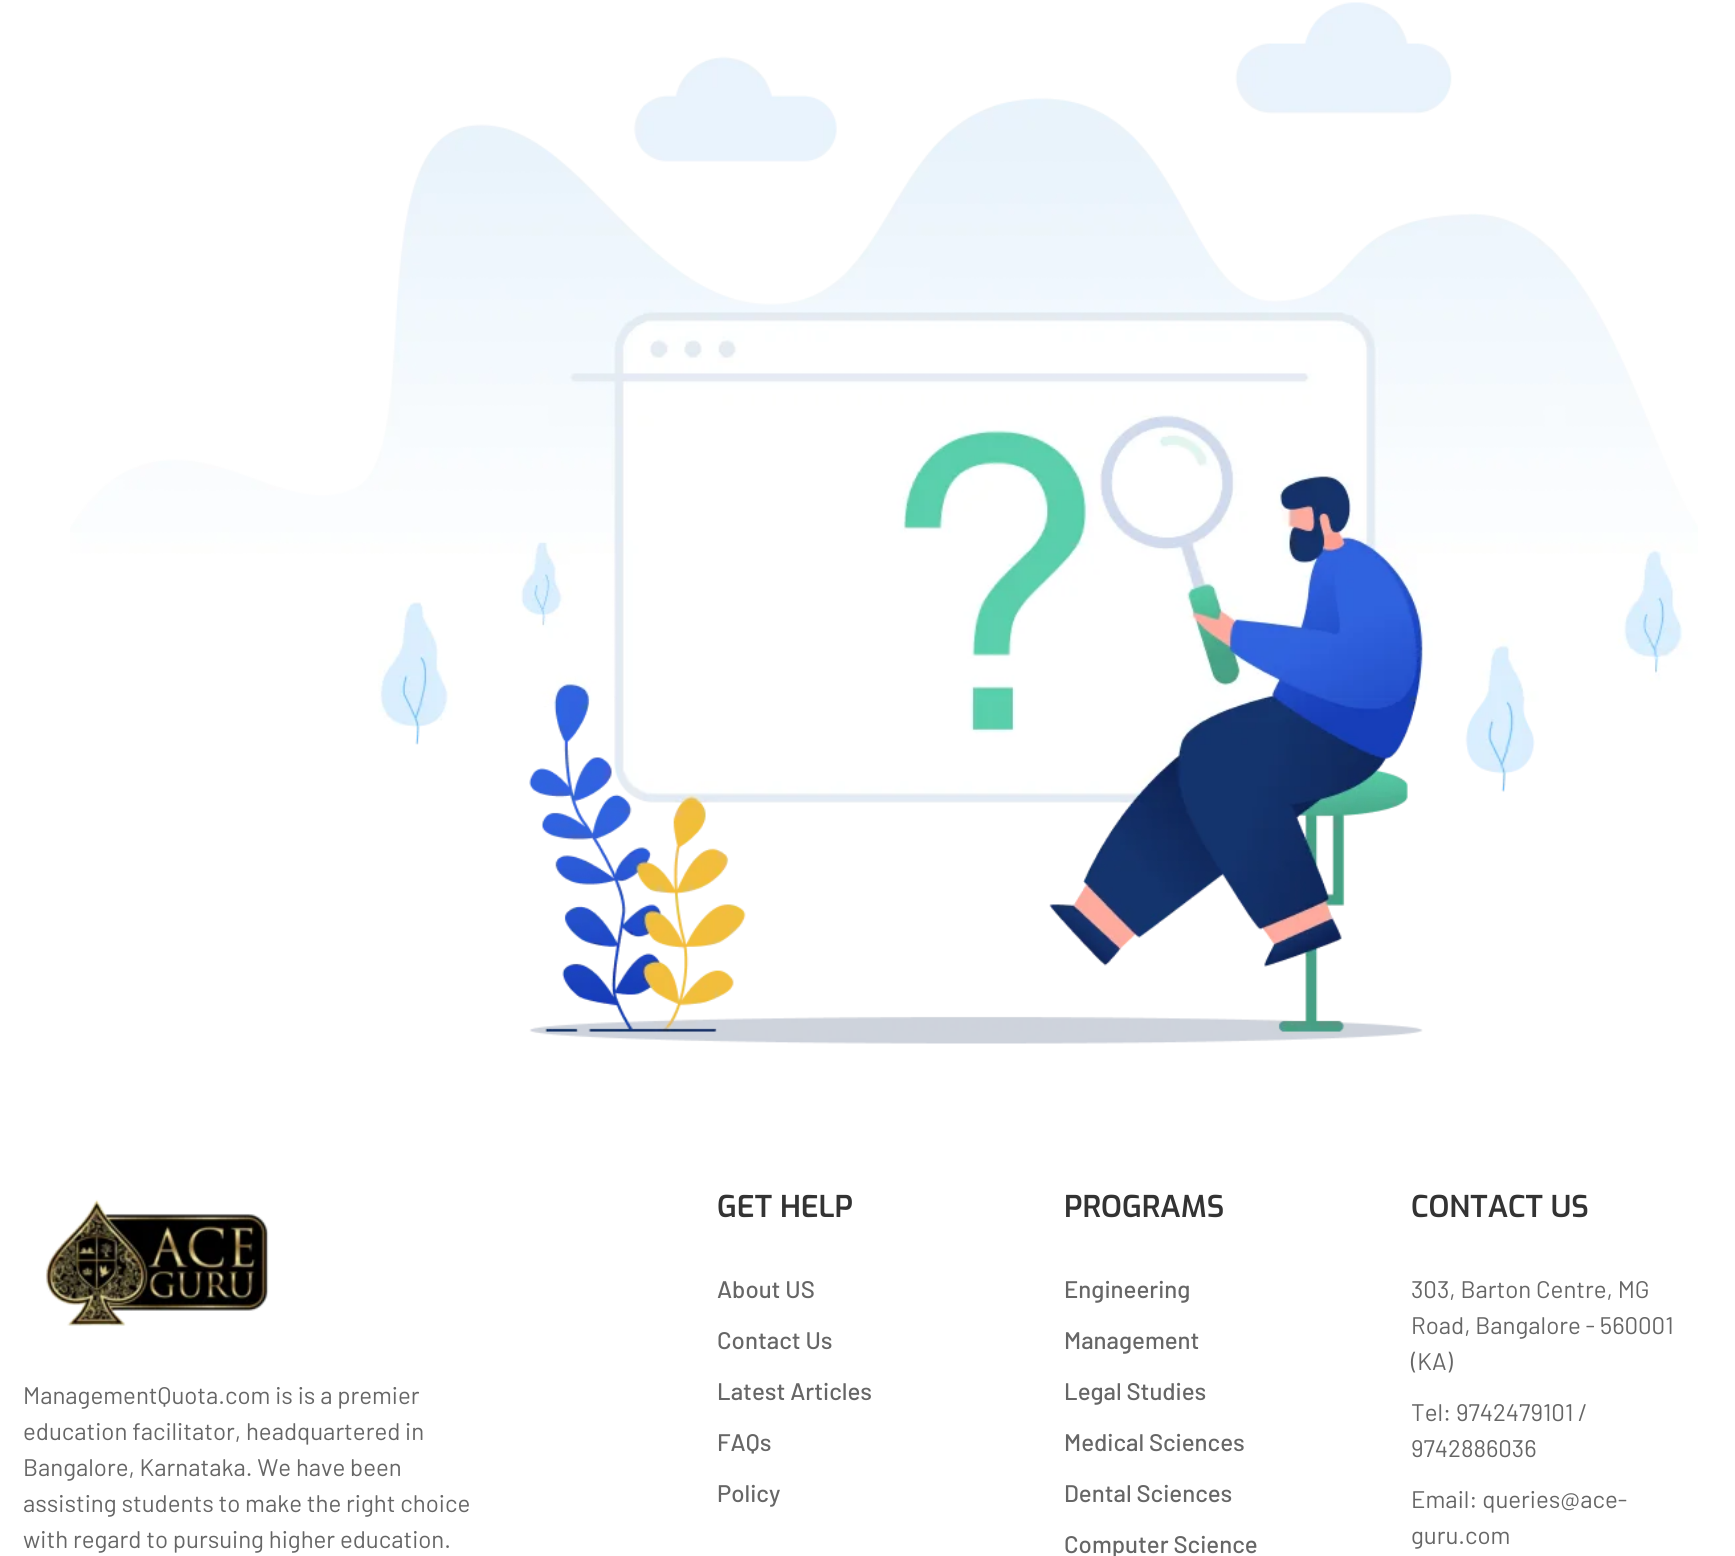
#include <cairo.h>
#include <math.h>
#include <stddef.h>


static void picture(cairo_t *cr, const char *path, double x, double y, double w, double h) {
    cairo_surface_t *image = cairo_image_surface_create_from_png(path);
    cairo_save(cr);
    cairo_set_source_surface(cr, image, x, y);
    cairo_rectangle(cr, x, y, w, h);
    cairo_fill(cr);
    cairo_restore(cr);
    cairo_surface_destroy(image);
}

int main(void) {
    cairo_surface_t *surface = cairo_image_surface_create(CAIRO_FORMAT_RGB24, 1735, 1556);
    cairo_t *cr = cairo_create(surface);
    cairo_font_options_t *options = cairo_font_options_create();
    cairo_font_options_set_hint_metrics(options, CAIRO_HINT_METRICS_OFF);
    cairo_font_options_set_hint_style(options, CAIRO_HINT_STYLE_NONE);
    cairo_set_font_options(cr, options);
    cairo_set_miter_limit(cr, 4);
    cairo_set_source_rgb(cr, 1, 1, 1);
    cairo_paint(cr);
    picture(cr, "img1.png", 70, 2, 1628, 1042);
    picture(cr, "img2.png", 45, 1199, 224, 127);
    cairo_select_font_face(cr, "Barlow", CAIRO_FONT_SLANT_NORMAL, CAIRO_FONT_WEIGHT_NORMAL);
    cairo_set_font_size(cr, 24);
    cairo_set_source_rgb(cr, 0.4, 0.4, 0.4);
    cairo_move_to(cr, 23, 1404);
    cairo_show_text(cr, "ManagementQuota.com is is a premier");
    cairo_move_to(cr, 23, 1440);
    cairo_show_text(cr, "education facilitator, headquartered in");
    cairo_move_to(cr, 23, 1476);
    cairo_show_text(cr, "Bangalore, Karnataka. We have been");
    cairo_move_to(cr, 23, 1512);
    cairo_show_text(cr, "assisting students to make the right choice");
    cairo_move_to(cr, 23, 1548);
    cairo_show_text(cr, "with regard to pursuing higher education.");
    cairo_select_font_face(cr, "Exo SemiBold", CAIRO_FONT_SLANT_NORMAL, CAIRO_FONT_WEIGHT_NORMAL);
    cairo_set_font_size(cr, 30);
    cairo_set_source_rgb(cr, 0.2, 0.2, 0.2);
    cairo_move_to(cr, 717, 1217);
    cairo_show_text(cr, "GET HELP");
    cairo_select_font_face(cr, "Barlow Medium", CAIRO_FONT_SLANT_NORMAL, CAIRO_FONT_WEIGHT_NORMAL);
    cairo_set_font_size(cr, 24);
    cairo_set_source_rgb(cr, 0.4, 0.4, 0.4);
    cairo_move_to(cr, 717, 1298);
    cairo_show_text(cr, "About US");
    cairo_move_to(cr, 717, 1349);
    cairo_show_text(cr, "Contact Us");
    cairo_move_to(cr, 717, 1400);
    cairo_show_text(cr, "Latest Articles");
    cairo_move_to(cr, 717, 1451);
    cairo_show_text(cr, "FAQs");
    cairo_move_to(cr, 717, 1502);
    cairo_show_text(cr, "Policy");
    cairo_select_font_face(cr, "Exo SemiBold", CAIRO_FONT_SLANT_NORMAL, CAIRO_FONT_WEIGHT_NORMAL);
    cairo_set_font_size(cr, 30);
    cairo_set_source_rgb(cr, 0.2, 0.2, 0.2);
    cairo_move_to(cr, 1064, 1217);
    cairo_show_text(cr, "PROGRAMS");
    cairo_select_font_face(cr, "Barlow Medium", CAIRO_FONT_SLANT_NORMAL, CAIRO_FONT_WEIGHT_NORMAL);
    cairo_set_font_size(cr, 24);
    cairo_set_source_rgb(cr, 0.4, 0.4, 0.4);
    cairo_move_to(cr, 1064, 1298);
    cairo_show_text(cr, "Engineering");
    cairo_move_to(cr, 1064, 1349);
    cairo_show_text(cr, "Management");
    cairo_move_to(cr, 1064, 1400);
    cairo_show_text(cr, "Legal Studies");
    cairo_move_to(cr, 1064, 1451);
    cairo_show_text(cr, "Medical Sciences");
    cairo_move_to(cr, 1064, 1502);
    cairo_show_text(cr, "Dental Sciences");
    cairo_move_to(cr, 1064, 1553);
    cairo_show_text(cr, "Computer Science");
    cairo_select_font_face(cr, "Exo SemiBold", CAIRO_FONT_SLANT_NORMAL, CAIRO_FONT_WEIGHT_NORMAL);
    cairo_set_font_size(cr, 30);
    cairo_set_source_rgb(cr, 0.2, 0.2, 0.2);
    cairo_move_to(cr, 1411, 1217);
    cairo_show_text(cr, "CONTACT US");
    cairo_select_font_face(cr, "Barlow", CAIRO_FONT_SLANT_NORMAL, CAIRO_FONT_WEIGHT_NORMAL);
    cairo_set_font_size(cr, 24);
    cairo_set_source_rgb(cr, 0.4, 0.4, 0.4);
    cairo_move_to(cr, 1411, 1298);
    cairo_show_text(cr, "303, Barton Centre, MG");
    cairo_move_to(cr, 1411, 1334);
    cairo_show_text(cr, "Road, Bangalore - 560001");
    cairo_move_to(cr, 1411, 1370);
    cairo_show_text(cr, "(KA)");
    cairo_move_to(cr, 1411, 1421);
    cairo_show_text(cr, "Tel: 9742479101 /");
    cairo_move_to(cr, 1411, 1457);
    cairo_show_text(cr, "9742886036");
    cairo_move_to(cr, 1411, 1508);
    cairo_show_text(cr, "Email: queries@ace-");
    cairo_move_to(cr, 1411, 1544);
    cairo_show_text(cr, "guru.com");
    cairo_surface_write_to_png(surface, "page.png");
    cairo_font_options_destroy(options);
    cairo_destroy(cr);
    cairo_surface_destroy(surface);
    return 0;
}
